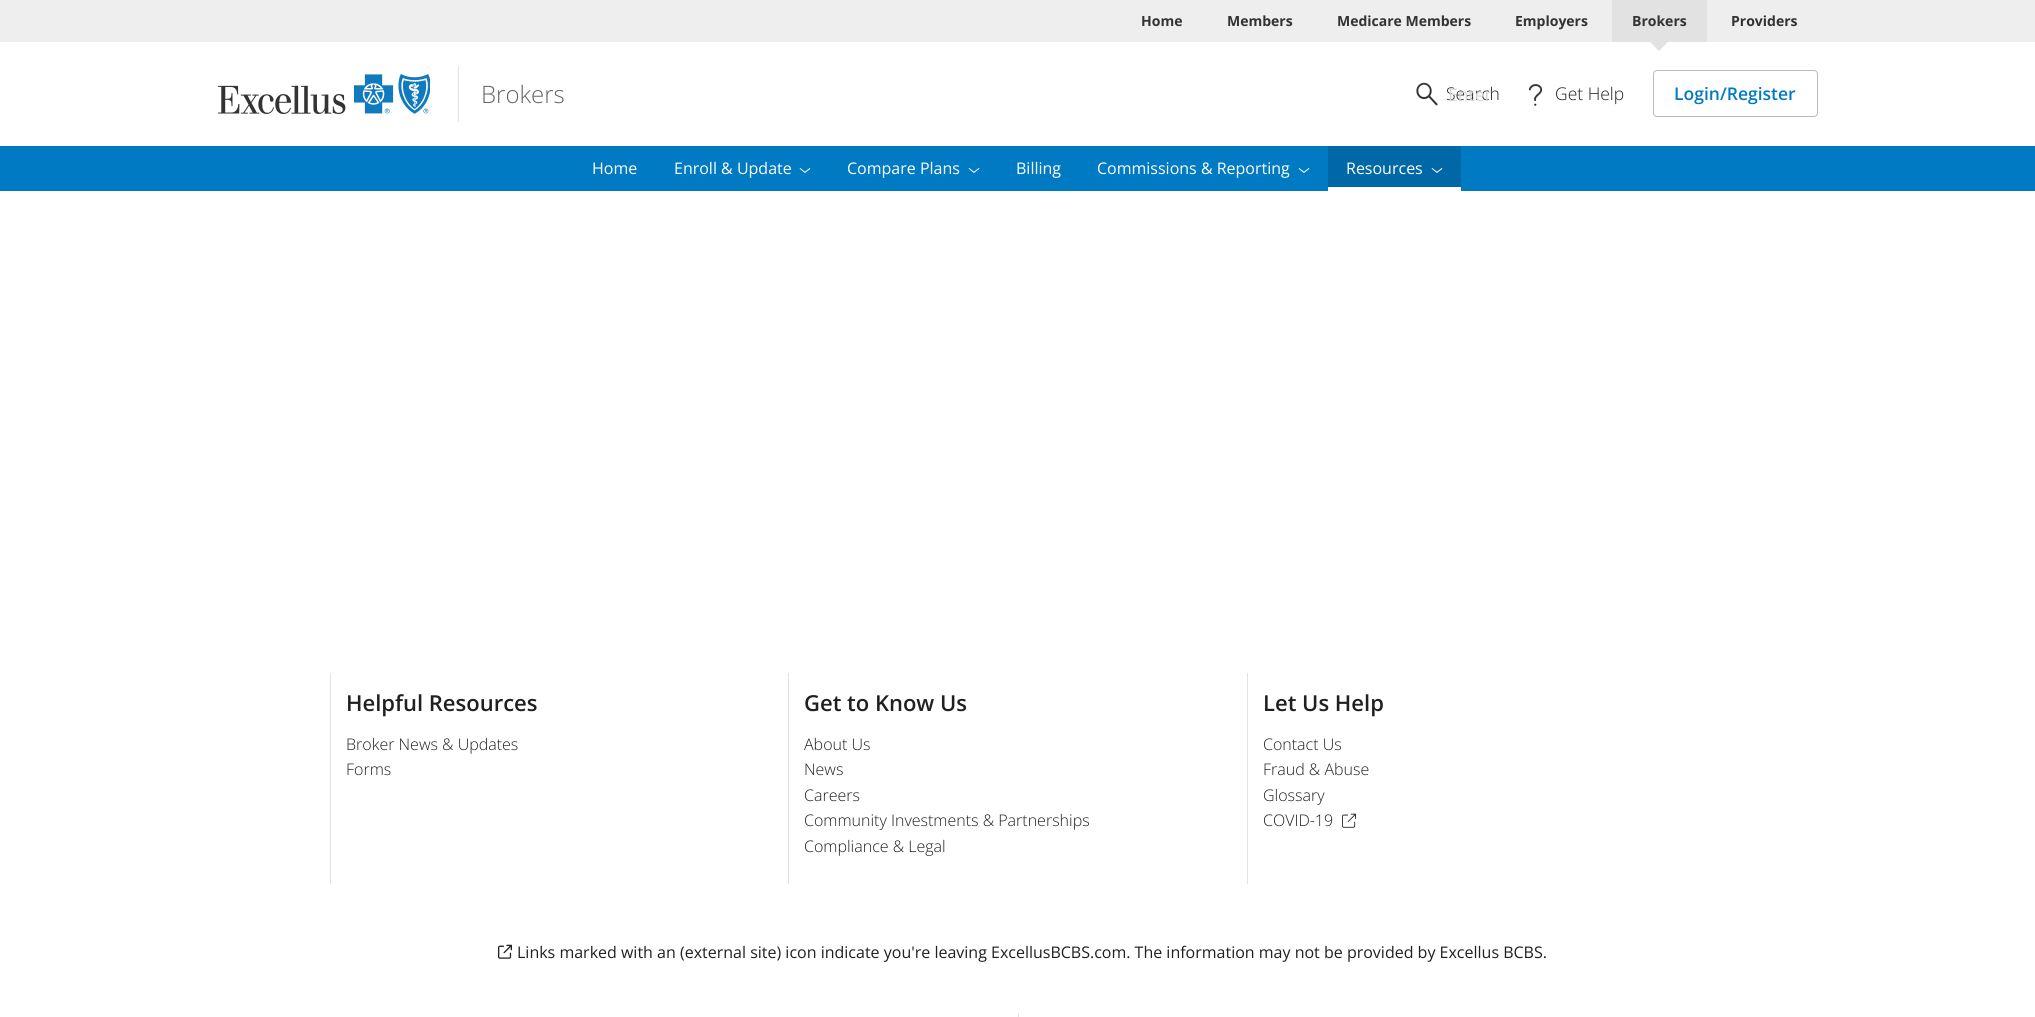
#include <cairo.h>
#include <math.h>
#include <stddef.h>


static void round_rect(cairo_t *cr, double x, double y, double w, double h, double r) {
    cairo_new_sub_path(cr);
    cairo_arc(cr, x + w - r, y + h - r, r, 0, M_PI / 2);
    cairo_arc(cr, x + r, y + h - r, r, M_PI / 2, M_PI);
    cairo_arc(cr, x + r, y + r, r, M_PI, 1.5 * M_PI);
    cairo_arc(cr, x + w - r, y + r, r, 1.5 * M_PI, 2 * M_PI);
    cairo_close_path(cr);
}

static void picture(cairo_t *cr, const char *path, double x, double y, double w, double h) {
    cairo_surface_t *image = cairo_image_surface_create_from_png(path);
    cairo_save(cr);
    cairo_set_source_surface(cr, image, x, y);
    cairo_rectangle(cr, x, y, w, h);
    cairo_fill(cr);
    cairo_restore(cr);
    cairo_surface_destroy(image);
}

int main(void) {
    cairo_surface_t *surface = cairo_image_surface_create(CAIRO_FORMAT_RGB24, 2035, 1017);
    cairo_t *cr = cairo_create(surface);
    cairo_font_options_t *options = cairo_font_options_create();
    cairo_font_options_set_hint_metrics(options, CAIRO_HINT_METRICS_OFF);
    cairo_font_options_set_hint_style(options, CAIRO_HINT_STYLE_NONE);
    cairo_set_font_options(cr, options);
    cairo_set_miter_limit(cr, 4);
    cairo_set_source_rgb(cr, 1, 1, 1);
    cairo_paint(cr);
    cairo_set_source_rgb(cr, 0.933, 0.933, 0.933);
    cairo_rectangle(cr, 0, 0, 2035, 42);
    cairo_fill(cr);
    cairo_select_font_face(cr, "Open Sans", CAIRO_FONT_SLANT_NORMAL, CAIRO_FONT_WEIGHT_BOLD);
    cairo_set_font_size(cr, 14);
    cairo_set_source_rgb(cr, 0.2, 0.2, 0.2);
    cairo_move_to(cr, 1141, 26);
    cairo_show_text(cr, "Home");
    cairo_move_to(cr, 1227, 26);
    cairo_show_text(cr, "Members");
    cairo_move_to(cr, 1337, 26);
    cairo_show_text(cr, "Medicare Members");
    cairo_move_to(cr, 1515, 26);
    cairo_show_text(cr, "Employers");
    cairo_set_source_rgb(cr, 0.89, 0.886, 0.886);
    cairo_rectangle(cr, 1612, 0, 95, 42);
    cairo_fill(cr);
    cairo_set_source_rgb(cr, 0.2, 0.2, 0.2);
    cairo_move_to(cr, 1632, 26);
    cairo_show_text(cr, "Brokers");
    cairo_set_source_rgb(cr, 0.89, 0.886, 0.886);
    cairo_new_path(cr);
    cairo_move_to(cr, 1650, 42);
    cairo_line_to(cr, 1668, 42);
    cairo_line_to(cr, 1659, 51);
    cairo_close_path(cr);
    cairo_fill(cr);
    cairo_set_source_rgb(cr, 0.2, 0.2, 0.2);
    cairo_move_to(cr, 1731, 26);
    cairo_show_text(cr, "Providers");
    picture(cr, "img1.png", 218, 74, 212, 40);
    cairo_set_source_rgb(cr, 0.886, 0.886, 0.886);
    cairo_rectangle(cr, 458, 66, 1, 56);
    cairo_fill(cr);
    cairo_select_font_face(cr, "Open Sans Light", CAIRO_FONT_SLANT_NORMAL, CAIRO_FONT_WEIGHT_NORMAL);
    cairo_set_font_size(cr, 24);
    cairo_set_source_rgb(cr, 0.404, 0.404, 0.404);
    cairo_move_to(cr, 481, 103);
    cairo_show_text(cr, "Brokers");
    picture(cr, "img2.png", 1416, 82, 22, 24);
    cairo_set_font_size(cr, 17.5);
    cairo_set_source_rgb(cr, 0.133, 0.122, 0.122);
    cairo_move_to(cr, 1446, 100);
    cairo_show_text(cr, "Search");
    cairo_select_font_face(cr, "Open Sans", CAIRO_FONT_SLANT_NORMAL, CAIRO_FONT_WEIGHT_NORMAL);
    cairo_set_source_rgb(cr, 0.847, 0.847, 0.847);
    cairo_move_to(cr, 1448, 101);
    cairo_show_text(cr, "Enter");
    picture(cr, "img3.png", 1528, 84, 15, 22);
    cairo_select_font_face(cr, "Open Sans Light", CAIRO_FONT_SLANT_NORMAL, CAIRO_FONT_WEIGHT_NORMAL);
    cairo_set_source_rgb(cr, 0.133, 0.122, 0.122);
    cairo_move_to(cr, 1555, 100);
    cairo_show_text(cr, "Get Help");
    round_rect(cr, 1653.5, 70.5, 164, 46, 3.5);
    cairo_set_source_rgb(cr, 0.733, 0.733, 0.733);
    cairo_set_line_width(cr, 1);
    cairo_stroke(cr);
    cairo_select_font_face(cr, "Open Sans SemiBold", CAIRO_FONT_SLANT_NORMAL, CAIRO_FONT_WEIGHT_NORMAL);
    cairo_set_source_rgb(cr, 0, 0.478, 0.765);
    cairo_move_to(cr, 1674, 100);
    cairo_show_text(cr, "Login/Register");
    cairo_rectangle(cr, 0, 146, 2035, 45);
    cairo_fill(cr);
    cairo_select_font_face(cr, "Open Sans", CAIRO_FONT_SLANT_NORMAL, CAIRO_FONT_WEIGHT_NORMAL);
    cairo_set_font_size(cr, 16);
    cairo_set_source_rgb(cr, 1, 1, 1);
    cairo_move_to(cr, 592, 174);
    cairo_show_text(cr, "Home");
    cairo_move_to(cr, 674, 174);
    cairo_show_text(cr, "Enroll & Update");
    picture(cr, "img4.png", 799, 168, 12, 5);
    cairo_move_to(cr, 847, 174);
    cairo_show_text(cr, "Compare Plans");
    picture(cr, "img4.png", 968, 168, 12, 5);
    cairo_move_to(cr, 1016, 174);
    cairo_show_text(cr, "Billing");
    cairo_move_to(cr, 1097, 174);
    cairo_show_text(cr, "Commissions & Reporting");
    picture(cr, "img4.png", 1298, 168, 12, 5);
    cairo_set_source_rgb(cr, 0, 0.408, 0.651);
    cairo_rectangle(cr, 1328, 146, 133, 41);
    cairo_fill(cr);
    cairo_set_source_rgb(cr, 1, 1, 1);
    cairo_move_to(cr, 1346, 174);
    cairo_show_text(cr, "Resources");
    picture(cr, "img5.png", 1431, 168, 12, 5);
    cairo_rectangle(cr, 1328, 187, 133, 4);
    cairo_fill(cr);
    cairo_set_source_rgb(cr, 0.886, 0.886, 0.886);
    cairo_rectangle(cr, 330, 673, 1, 211);
    cairo_fill(cr);
    cairo_select_font_face(cr, "Open Sans SemiBold", CAIRO_FONT_SLANT_NORMAL, CAIRO_FONT_WEIGHT_NORMAL);
    cairo_set_font_size(cr, 22);
    cairo_set_source_rgb(cr, 0.133, 0.122, 0.122);
    cairo_move_to(cr, 346, 711);
    cairo_show_text(cr, "Helpful Resources");
    cairo_select_font_face(cr, "Open Sans Light", CAIRO_FONT_SLANT_NORMAL, CAIRO_FONT_WEIGHT_NORMAL);
    cairo_set_font_size(cr, 16);
    cairo_move_to(cr, 346, 750);
    cairo_show_text(cr, "Broker News & Updates");
    cairo_move_to(cr, 346, 775);
    cairo_show_text(cr, "Forms");
    cairo_set_source_rgb(cr, 0.886, 0.886, 0.886);
    cairo_rectangle(cr, 788, 673, 1, 211);
    cairo_fill(cr);
    cairo_select_font_face(cr, "Open Sans SemiBold", CAIRO_FONT_SLANT_NORMAL, CAIRO_FONT_WEIGHT_NORMAL);
    cairo_set_font_size(cr, 22);
    cairo_set_source_rgb(cr, 0.133, 0.122, 0.122);
    cairo_move_to(cr, 804, 711);
    cairo_show_text(cr, "Get to Know Us");
    cairo_select_font_face(cr, "Open Sans Light", CAIRO_FONT_SLANT_NORMAL, CAIRO_FONT_WEIGHT_NORMAL);
    cairo_set_font_size(cr, 16);
    cairo_move_to(cr, 804, 750);
    cairo_show_text(cr, "About Us");
    cairo_move_to(cr, 804, 775);
    cairo_show_text(cr, "News");
    cairo_move_to(cr, 804, 801);
    cairo_show_text(cr, "Careers");
    cairo_move_to(cr, 804, 826);
    cairo_show_text(cr, "Community Investments & Partnerships");
    cairo_move_to(cr, 804, 852);
    cairo_show_text(cr, "Compliance & Legal");
    cairo_set_source_rgb(cr, 0.886, 0.886, 0.886);
    cairo_rectangle(cr, 1247, 673, 1, 211);
    cairo_fill(cr);
    cairo_select_font_face(cr, "Open Sans SemiBold", CAIRO_FONT_SLANT_NORMAL, CAIRO_FONT_WEIGHT_NORMAL);
    cairo_set_font_size(cr, 22);
    cairo_set_source_rgb(cr, 0.133, 0.122, 0.122);
    cairo_move_to(cr, 1263, 711);
    cairo_show_text(cr, "Let Us Help");
    cairo_select_font_face(cr, "Open Sans Light", CAIRO_FONT_SLANT_NORMAL, CAIRO_FONT_WEIGHT_NORMAL);
    cairo_set_font_size(cr, 16);
    cairo_move_to(cr, 1263, 750);
    cairo_show_text(cr, "Contact Us");
    cairo_move_to(cr, 1263, 775);
    cairo_show_text(cr, "Fraud & Abuse");
    cairo_move_to(cr, 1263, 801);
    cairo_show_text(cr, "Glossary");
    cairo_move_to(cr, 1263, 826);
    cairo_show_text(cr, "COVID-19");
    picture(cr, "img6.png", 1342, 813, 14, 15);
    picture(cr, "img7.png", 498, 944, 14, 15);
    cairo_select_font_face(cr, "Open Sans", CAIRO_FONT_SLANT_NORMAL, CAIRO_FONT_WEIGHT_NORMAL);
    cairo_move_to(cr, 517, 958);
    cairo_show_text(cr, "Links marked with an (external site) icon indicate you're leaving ExcellusBCBS.com. The information may not be provided by Excellus BCBS.");
    cairo_set_source_rgb(cr, 0.886, 0.886, 0.886);
    cairo_rectangle(cr, 1018, 1013, 1, 4);
    cairo_fill(cr);
    cairo_surface_write_to_png(surface, "page.png");
    cairo_font_options_destroy(options);
    cairo_destroy(cr);
    cairo_surface_destroy(surface);
    return 0;
}
